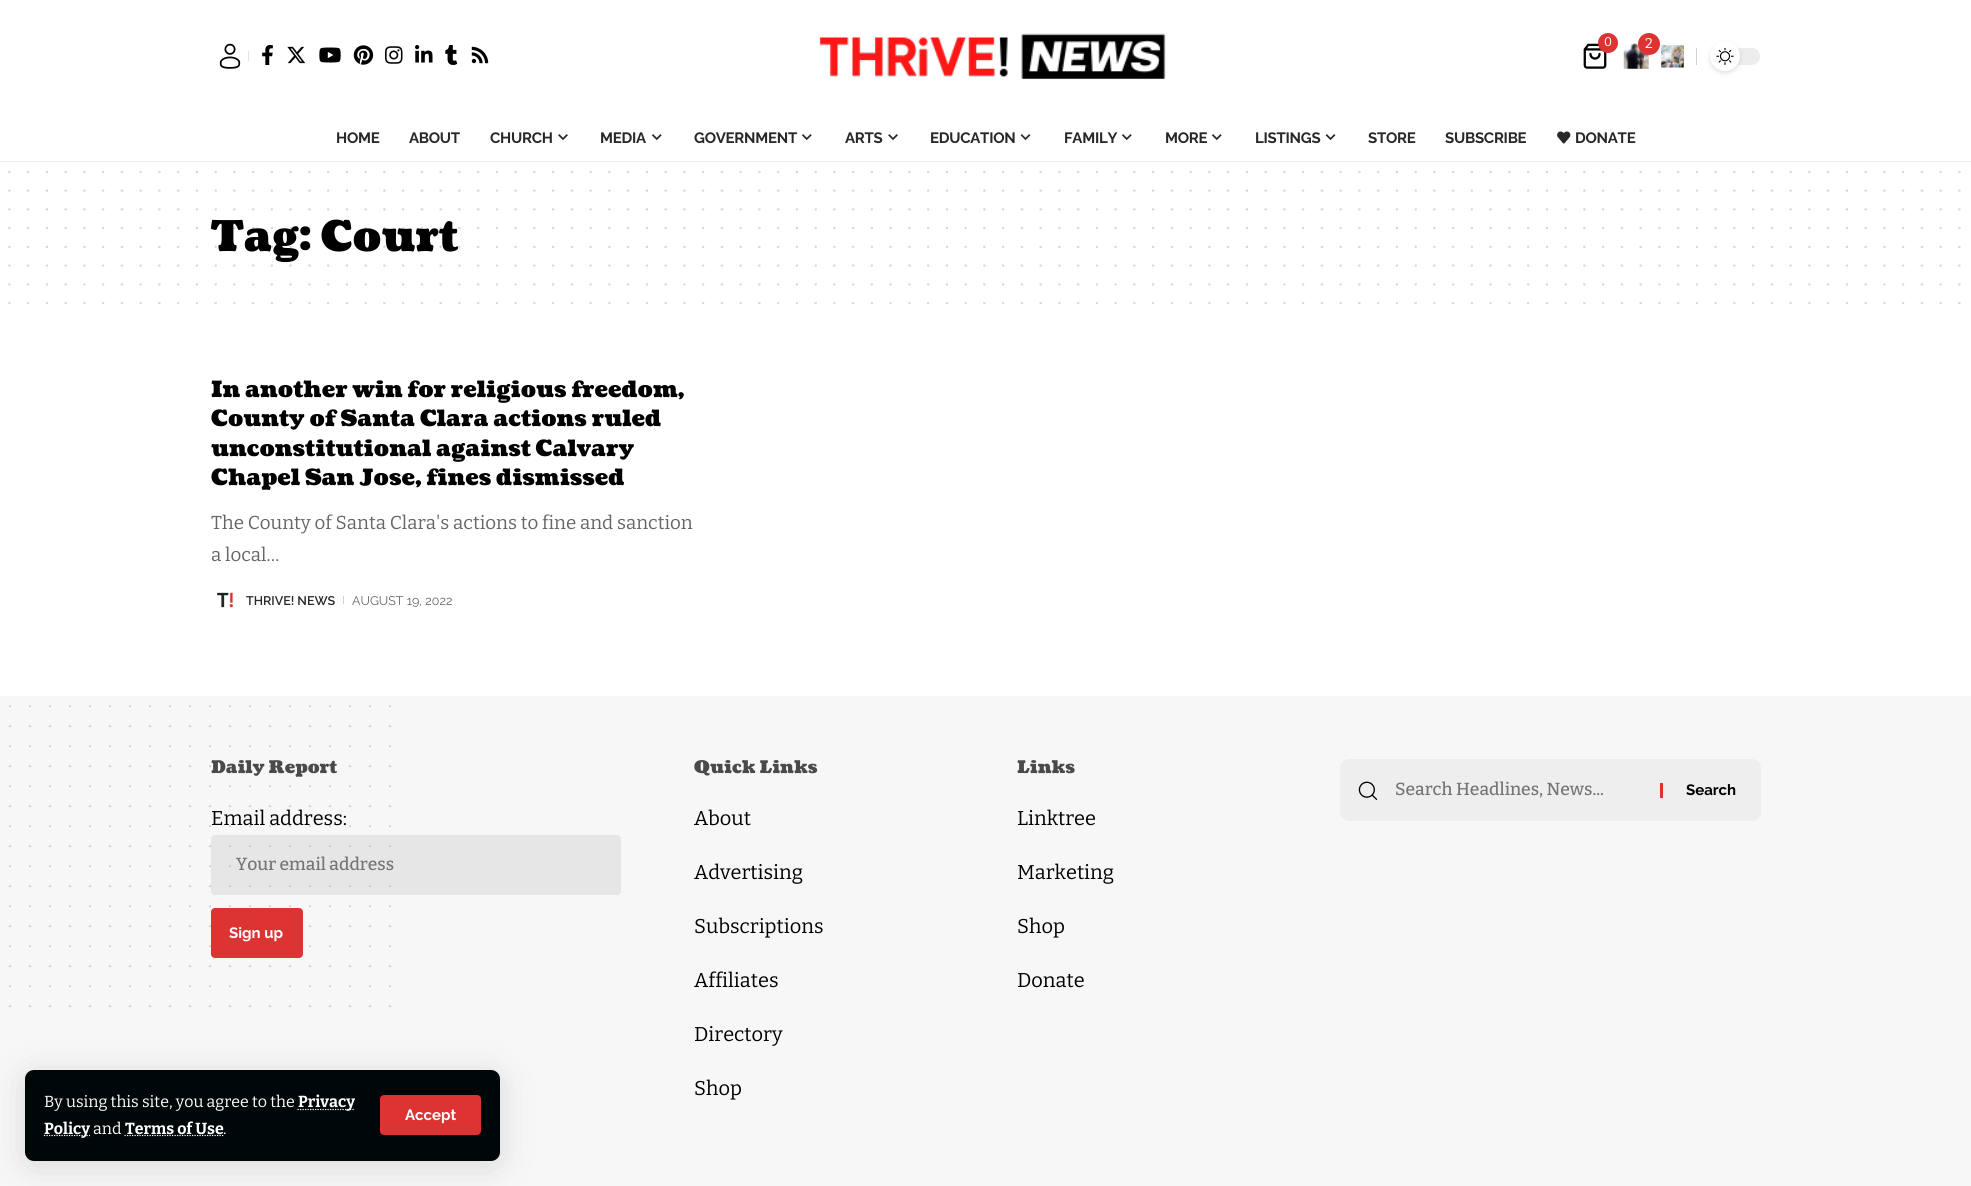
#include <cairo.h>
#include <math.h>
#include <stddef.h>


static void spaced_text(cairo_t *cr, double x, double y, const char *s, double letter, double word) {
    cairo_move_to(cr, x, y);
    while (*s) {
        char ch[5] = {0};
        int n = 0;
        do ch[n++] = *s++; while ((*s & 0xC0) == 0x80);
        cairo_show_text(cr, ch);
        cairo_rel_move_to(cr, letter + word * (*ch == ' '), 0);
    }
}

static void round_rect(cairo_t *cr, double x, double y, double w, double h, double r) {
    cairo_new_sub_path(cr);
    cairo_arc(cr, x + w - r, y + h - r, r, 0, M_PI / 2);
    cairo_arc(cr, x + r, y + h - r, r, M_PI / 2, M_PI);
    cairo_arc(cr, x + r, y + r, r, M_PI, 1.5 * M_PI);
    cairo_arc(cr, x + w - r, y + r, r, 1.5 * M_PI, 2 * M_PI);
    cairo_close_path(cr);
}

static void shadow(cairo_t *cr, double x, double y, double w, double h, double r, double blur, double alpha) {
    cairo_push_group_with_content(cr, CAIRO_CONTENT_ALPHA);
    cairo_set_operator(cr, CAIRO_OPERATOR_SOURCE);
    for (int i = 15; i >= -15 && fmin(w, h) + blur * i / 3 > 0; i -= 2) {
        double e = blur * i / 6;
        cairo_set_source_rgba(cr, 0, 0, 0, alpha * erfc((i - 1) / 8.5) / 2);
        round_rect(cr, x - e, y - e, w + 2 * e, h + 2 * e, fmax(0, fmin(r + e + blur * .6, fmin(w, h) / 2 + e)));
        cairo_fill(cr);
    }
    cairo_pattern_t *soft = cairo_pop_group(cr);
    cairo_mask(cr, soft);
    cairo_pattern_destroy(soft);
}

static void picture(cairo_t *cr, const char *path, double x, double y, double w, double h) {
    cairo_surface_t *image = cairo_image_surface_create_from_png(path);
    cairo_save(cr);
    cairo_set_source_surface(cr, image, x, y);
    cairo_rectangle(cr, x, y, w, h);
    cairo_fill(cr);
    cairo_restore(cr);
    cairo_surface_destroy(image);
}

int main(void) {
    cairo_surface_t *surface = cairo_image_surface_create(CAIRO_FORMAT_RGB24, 1971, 1186);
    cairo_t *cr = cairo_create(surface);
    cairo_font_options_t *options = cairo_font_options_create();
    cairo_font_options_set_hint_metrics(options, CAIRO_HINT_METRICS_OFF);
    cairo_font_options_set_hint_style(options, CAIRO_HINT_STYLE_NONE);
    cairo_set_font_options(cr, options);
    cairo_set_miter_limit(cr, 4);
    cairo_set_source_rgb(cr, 1, 1, 1);
    cairo_paint(cr);
    picture(cr, "img1.png", 219, 43, 22, 26);
    cairo_set_source_rgb(cr, 0.894, 0.894, 0.894);
    cairo_rectangle(cr, 248, 51, 1, 10);
    cairo_fill(cr);
    picture(cr, "img2.png", 262, 45, 11, 20);
    picture(cr, "img3.png", 287, 46, 19, 18);
    picture(cr, "img4.png", 319, 47, 22, 16);
    picture(cr, "img5.png", 353, 45, 21, 20);
    picture(cr, "img6.png", 385, 46, 18, 18);
    picture(cr, "img7.png", 415, 45, 18, 18);
    picture(cr, "img8.png", 445, 45, 13, 20);
    picture(cr, "img9.png", 471, 46, 18, 18);
    picture(cr, "img10.png", 819, 33, 347, 47);
    picture(cr, "img11.png", 1583, 43, 24, 26);
    cairo_set_source_rgb(cr, 0.867, 0.2, 0.2);
    cairo_arc(cr, 1608, 43, 10, 0, 2 * M_PI);
    cairo_fill(cr);
    cairo_select_font_face(cr, "Bitter", CAIRO_FONT_SLANT_NORMAL, CAIRO_FONT_WEIGHT_NORMAL);
    cairo_set_font_size(cr, 12.5);
    cairo_set_source_rgb(cr, 1, 1, 1);
    cairo_move_to(cr, 1604, 46);
    cairo_show_text(cr, "0");
    picture(cr, "img12.png", 1623, 43, 26, 26);
    cairo_set_source_rgb(cr, 0.867, 0.2, 0.2);
    cairo_arc(cr, 1649, 44, 11, 0, 2 * M_PI);
    cairo_fill(cr);
    cairo_set_font_size(cr, 14);
    cairo_set_source_rgb(cr, 1, 1, 1);
    cairo_move_to(cr, 1645, 48);
    cairo_show_text(cr, "2");
    cairo_set_source_rgb(cr, 0.812, 0.812, 0.812);
    cairo_rectangle(cr, 1696, 48, 1, 17);
    cairo_fill(cr);
    cairo_set_source_rgb(cr, 0.929, 0.929, 0.929);
    round_rect(cr, 1710, 48, 50, 17, 8.5);
    cairo_fill(cr);
    cairo_set_source_rgb(cr, 0, 0, 0);
    shadow(cr, 1710, 43, 30, 30, 15, 2.5, 0.12);
    cairo_set_source_rgb(cr, 1, 1, 1);
    cairo_arc(cr, 1725, 56, 15, 0, 2 * M_PI);
    cairo_fill(cr);
    picture(cr, "img13.png", 1716, 48, 18, 17);
    picture(cr, "img14.png", 1661, 45, 23, 23);
    cairo_select_font_face(cr, "Raleway", CAIRO_FONT_SLANT_NORMAL, CAIRO_FONT_WEIGHT_BOLD);
    cairo_set_font_size(cr, 15);
    cairo_set_source_rgb(cr, 0.157, 0.157, 0.157);
    spaced_text(cr, 336, 143, "HOME", -0.25, 0);
    spaced_text(cr, 409, 143, "ABOUT", -0.25, 0);
    spaced_text(cr, 490, 143, "CHURCH", -0.25, 0);
    picture(cr, "img15.png", 558, 134, 10, 6);
    spaced_text(cr, 600, 143, "MEDIA", -0.25, 0);
    picture(cr, "img16.png", 651, 134, 11, 7);
    spaced_text(cr, 694, 143, "GOVERNMENT", -0.25, 0);
    picture(cr, "img16.png", 801, 134, 11, 7);
    spaced_text(cr, 845, 143, "ARTS", -0.25, 0);
    picture(cr, "img15.png", 888, 134, 10, 6);
    spaced_text(cr, 930, 143, "EDUCATION", -0.25, 0);
    picture(cr, "img17.png", 1020, 134, 11, 7);
    spaced_text(cr, 1064, 143, "FAMILY", -0.25, 0);
    picture(cr, "img16.png", 1121, 134, 11, 7);
    spaced_text(cr, 1165, 143, "MORE", -0.25, 0);
    picture(cr, "img16.png", 1211, 134, 11, 7);
    spaced_text(cr, 1255, 143, "LISTINGS", -0.25, 0);
    picture(cr, "img17.png", 1325, 134, 11, 7);
    spaced_text(cr, 1368, 143, "STORE", -0.25, 0);
    spaced_text(cr, 1445, 143, "SUBSCRIBE", -0.25, 0);
    picture(cr, "img18.png", 1557, 131, 14, 13);
    spaced_text(cr, 1575, 143, "DONATE", -0.25, 0);
    cairo_set_source_rgb(cr, 0.929, 0.929, 0.929);
    cairo_rectangle(cr, 0, 161, 1971, 1);
    cairo_fill(cr);
    cairo_set_source_rgb(cr, 0.965, 0.965, 0.965);
    cairo_rectangle(cr, 0, 696, 1971, 490);
    cairo_fill(cr);
    cairo_set_source_rgb(cr, 0, 0, 0);
    shadow(cr, 25, 1075, 475, 91, 9, 19, 0.12);
    cairo_set_source_rgb(cr, 0, 0.031, 0.039);
    round_rect(cr, 25, 1070, 475, 91, 9);
    cairo_fill(cr);
    cairo_select_font_face(cr, "Bitter", CAIRO_FONT_SLANT_NORMAL, CAIRO_FONT_WEIGHT_NORMAL);
    cairo_set_font_size(cr, 16);
    cairo_set_source_rgb(cr, 1, 1, 1);
    cairo_move_to(cr, 44, 1107);
    cairo_show_text(cr, "By using this site, you agree to the");
    cairo_new_path(cr);
    cairo_move_to(cr, 297.5, 1109.5);
    cairo_line_to(cr, 354.5, 1109.5);
    cairo_set_line_width(cr, 1.2);
    cairo_set_dash(cr, (double[]){1.25, 1.25}, 2, 0);
    cairo_stroke(cr);
    cairo_select_font_face(cr, "Bitter", CAIRO_FONT_SLANT_NORMAL, CAIRO_FONT_WEIGHT_BOLD);
    cairo_move_to(cr, 298, 1107);
    cairo_show_text(cr, "Privacy");
    cairo_new_path(cr);
    cairo_move_to(cr, 44, 1135.5);
    cairo_line_to(cr, 90, 1135.5);
    cairo_stroke(cr);
    cairo_move_to(cr, 44, 1134);
    cairo_show_text(cr, "Policy");
    cairo_select_font_face(cr, "Bitter", CAIRO_FONT_SLANT_NORMAL, CAIRO_FONT_WEIGHT_NORMAL);
    cairo_move_to(cr, 93, 1134);
    cairo_show_text(cr, "and");
    cairo_new_path(cr);
    cairo_move_to(cr, 124.5, 1135.5);
    cairo_line_to(cr, 223.5, 1135.5);
    cairo_stroke(cr);
    cairo_select_font_face(cr, "Bitter", CAIRO_FONT_SLANT_NORMAL, CAIRO_FONT_WEIGHT_BOLD);
    cairo_move_to(cr, 125, 1134);
    cairo_show_text(cr, "Terms of Use");
    cairo_select_font_face(cr, "Bitter", CAIRO_FONT_SLANT_NORMAL, CAIRO_FONT_WEIGHT_NORMAL);
    cairo_move_to(cr, 223, 1134);
    cairo_show_text(cr, ".");
    cairo_set_source_rgb(cr, 0.867, 0.2, 0.2);
    round_rect(cr, 380, 1095, 101, 40, 4);
    cairo_fill(cr);
    cairo_select_font_face(cr, "Raleway", CAIRO_FONT_SLANT_NORMAL, CAIRO_FONT_WEIGHT_BOLD);
    cairo_set_font_size(cr, 15);
    cairo_set_source_rgb(cr, 1, 1, 1);
    cairo_move_to(cr, 405, 1120);
    cairo_show_text(cr, "Accept");
    cairo_new_path(cr);
    cairo_move_to(cr, 9.4, 171.9);
    cairo_line_to(cr, 1959.6, 171.9);
    cairo_set_source_rgb(cr, 0.851, 0.851, 0.851);
    cairo_set_line_width(cr, 2.5);
    cairo_set_line_cap(cr, CAIRO_LINE_CAP_ROUND);
    cairo_set_dash(cr, (double[]){0, 18.75}, 2, 0);
    cairo_stroke(cr);
    cairo_new_path(cr);
    cairo_move_to(cr, 9.4, 190.6);
    cairo_line_to(cr, 1959.6, 190.6);
    cairo_stroke(cr);
    cairo_new_path(cr);
    cairo_move_to(cr, 9.4, 209.4);
    cairo_line_to(cr, 1959.6, 209.4);
    cairo_stroke(cr);
    cairo_select_font_face(cr, "Coustard Black", CAIRO_FONT_SLANT_NORMAL, CAIRO_FONT_WEIGHT_NORMAL);
    cairo_set_font_size(cr, 42.5);
    cairo_set_source_rgb(cr, 0, 0, 0);
    cairo_move_to(cr, 211, 251);
    cairo_show_text(cr, "Tag: Court");
    cairo_new_path(cr);
    cairo_move_to(cr, 9.4, 228.1);
    cairo_line_to(cr, 1959.6, 228.1);
    cairo_set_source_rgba(cr, 0, 0, 0, 0.15);
    cairo_stroke(cr);
    cairo_new_path(cr);
    cairo_move_to(cr, 9.4, 246.9);
    cairo_line_to(cr, 1959.6, 246.9);
    cairo_stroke(cr);
    cairo_new_path(cr);
    cairo_move_to(cr, 9.4, 265.6);
    cairo_line_to(cr, 1959.6, 265.6);
    cairo_set_source_rgb(cr, 0.851, 0.851, 0.851);
    cairo_stroke(cr);
    cairo_new_path(cr);
    cairo_move_to(cr, 9.4, 284.4);
    cairo_line_to(cr, 1959.6, 284.4);
    cairo_stroke(cr);
    cairo_new_path(cr);
    cairo_move_to(cr, 9.4, 303.1);
    cairo_line_to(cr, 1959.6, 303.1);
    cairo_stroke(cr);
    cairo_set_font_size(cr, 22.5);
    cairo_set_source_rgb(cr, 0, 0, 0);
    cairo_move_to(cr, 211, 397);
    cairo_show_text(cr, "In another win for religious freedom,");
    cairo_move_to(cr, 211, 426);
    cairo_show_text(cr, "County of Santa Clara actions ruled");
    cairo_move_to(cr, 211, 456);
    cairo_show_text(cr, "unconstitutional against Calvary");
    cairo_move_to(cr, 211, 485);
    cairo_show_text(cr, "Chapel San Jose, fines dismissed");
    cairo_select_font_face(cr, "Bitter", CAIRO_FONT_SLANT_NORMAL, CAIRO_FONT_WEIGHT_NORMAL);
    cairo_set_font_size(cr, 18.75);
    cairo_set_source_rgb(cr, 0.4, 0.4, 0.4);
    cairo_move_to(cr, 211, 529);
    cairo_show_text(cr, "The County of Santa Clara's actions to fine and sanction");
    cairo_move_to(cr, 211, 561);
    cairo_show_text(cr, "a local…");
    picture(cr, "img19.png", 217, 592, 17, 16);
    cairo_select_font_face(cr, "Raleway SemiBold", CAIRO_FONT_SLANT_NORMAL, CAIRO_FONT_WEIGHT_NORMAL);
    cairo_set_font_size(cr, 12.5);
    cairo_set_source_rgb(cr, 0.157, 0.157, 0.157);
    cairo_move_to(cr, 246, 605);
    cairo_show_text(cr, "THRIVE! NEWS");
    cairo_set_source_rgb(cr, 0.82, 0.82, 0.82);
    cairo_rectangle(cr, 343, 596, 1, 8);
    cairo_fill(cr);
    cairo_select_font_face(cr, "Raleway", CAIRO_FONT_SLANT_NORMAL, CAIRO_FONT_WEIGHT_NORMAL);
    cairo_set_source_rgb(cr, 0.4, 0.4, 0.4);
    cairo_move_to(cr, 352, 605);
    cairo_show_text(cr, "AUGUST 19, 2022");
    cairo_new_path(cr);
    cairo_move_to(cr, 10, 706.2);
    cairo_line_to(cr, 390.2, 706.2);
    cairo_set_source_rgb(cr, 0.773, 0.773, 0.773);
    cairo_set_line_width(cr, 1.9);
    cairo_set_dash(cr, (double[]){0, 20}, 2, 0);
    cairo_stroke(cr);
    cairo_new_path(cr);
    cairo_move_to(cr, 10, 726.2);
    cairo_line_to(cr, 390.2, 726.2);
    cairo_stroke(cr);
    cairo_new_path(cr);
    cairo_move_to(cr, 10, 746.2);
    cairo_line_to(cr, 390.2, 746.2);
    cairo_stroke(cr);
    cairo_new_path(cr);
    cairo_move_to(cr, 10, 766.2);
    cairo_line_to(cr, 390.2, 766.2);
    cairo_stroke(cr);
    cairo_new_path(cr);
    cairo_move_to(cr, 10, 786.2);
    cairo_line_to(cr, 390.2, 786.2);
    cairo_stroke(cr);
    cairo_new_path(cr);
    cairo_move_to(cr, 10, 806.2);
    cairo_line_to(cr, 390.2, 806.2);
    cairo_stroke(cr);
    cairo_new_path(cr);
    cairo_move_to(cr, 10, 826.2);
    cairo_line_to(cr, 390.2, 826.2);
    cairo_stroke(cr);
    cairo_new_path(cr);
    cairo_move_to(cr, 10, 846.2);
    cairo_line_to(cr, 390.2, 846.2);
    cairo_stroke(cr);
    cairo_new_path(cr);
    cairo_move_to(cr, 10, 866.2);
    cairo_line_to(cr, 390.2, 866.2);
    cairo_stroke(cr);
    cairo_new_path(cr);
    cairo_move_to(cr, 10, 886.2);
    cairo_line_to(cr, 390.2, 886.2);
    cairo_stroke(cr);
    cairo_new_path(cr);
    cairo_move_to(cr, 10, 906.2);
    cairo_line_to(cr, 390.2, 906.2);
    cairo_stroke(cr);
    cairo_new_path(cr);
    cairo_move_to(cr, 10, 926.2);
    cairo_line_to(cr, 390.2, 926.2);
    cairo_stroke(cr);
    cairo_new_path(cr);
    cairo_move_to(cr, 10, 946.2);
    cairo_line_to(cr, 390.2, 946.2);
    cairo_stroke(cr);
    cairo_new_path(cr);
    cairo_move_to(cr, 10, 966.2);
    cairo_line_to(cr, 390.2, 966.2);
    cairo_stroke(cr);
    cairo_new_path(cr);
    cairo_move_to(cr, 10, 986.2);
    cairo_line_to(cr, 390.2, 986.2);
    cairo_stroke(cr);
    cairo_new_path(cr);
    cairo_move_to(cr, 10, 1006.2);
    cairo_line_to(cr, 390.2, 1006.2);
    cairo_stroke(cr);
    cairo_select_font_face(cr, "Coustard Black", CAIRO_FONT_SLANT_NORMAL, CAIRO_FONT_WEIGHT_NORMAL);
    cairo_set_font_size(cr, 17.5);
    cairo_set_source_rgb(cr, 0.29, 0.29, 0.29);
    cairo_move_to(cr, 211, 773);
    cairo_show_text(cr, "Daily Report");
    cairo_select_font_face(cr, "Bitter", CAIRO_FONT_SLANT_NORMAL, CAIRO_FONT_WEIGHT_NORMAL);
    cairo_set_font_size(cr, 20);
    cairo_set_source_rgb(cr, 0, 0, 0);
    cairo_move_to(cr, 211, 825);
    cairo_show_text(cr, "Email address:");
    cairo_set_source_rgba(cr, 0.533, 0.533, 0.533, 0.15);
    round_rect(cr, 211, 835, 410, 60, 4);
    cairo_fill(cr);
    cairo_select_font_face(cr, "Bitter Medium", CAIRO_FONT_SLANT_NORMAL, CAIRO_FONT_WEIGHT_NORMAL);
    cairo_set_font_size(cr, 17.5);
    cairo_set_source_rgb(cr, 0.459, 0.459, 0.459);
    cairo_move_to(cr, 236, 870);
    cairo_show_text(cr, "Your email address");
    cairo_set_source_rgb(cr, 0.867, 0.2, 0.2);
    round_rect(cr, 211, 908, 92, 50, 4);
    cairo_fill(cr);
    cairo_select_font_face(cr, "Raleway", CAIRO_FONT_SLANT_NORMAL, CAIRO_FONT_WEIGHT_BOLD);
    cairo_set_font_size(cr, 15);
    cairo_set_source_rgb(cr, 1, 1, 1);
    cairo_move_to(cr, 229, 938);
    cairo_show_text(cr, "Sign up");
    cairo_select_font_face(cr, "Coustard Black", CAIRO_FONT_SLANT_NORMAL, CAIRO_FONT_WEIGHT_NORMAL);
    cairo_set_font_size(cr, 17.5);
    cairo_set_source_rgb(cr, 0.29, 0.29, 0.29);
    cairo_move_to(cr, 694, 773);
    cairo_show_text(cr, "Quick Links");
    cairo_select_font_face(cr, "Bitter", CAIRO_FONT_SLANT_NORMAL, CAIRO_FONT_WEIGHT_NORMAL);
    cairo_set_font_size(cr, 20);
    cairo_set_source_rgb(cr, 0, 0, 0);
    cairo_move_to(cr, 694, 825);
    cairo_show_text(cr, "About");
    cairo_move_to(cr, 694, 879);
    cairo_show_text(cr, "Advertising");
    cairo_move_to(cr, 694, 933);
    cairo_show_text(cr, "Subscriptions");
    cairo_move_to(cr, 694, 987);
    cairo_show_text(cr, "Affiliates");
    cairo_move_to(cr, 694, 1041);
    cairo_show_text(cr, "Directory");
    cairo_move_to(cr, 694, 1095);
    cairo_show_text(cr, "Shop");
    cairo_select_font_face(cr, "Coustard Black", CAIRO_FONT_SLANT_NORMAL, CAIRO_FONT_WEIGHT_NORMAL);
    cairo_set_font_size(cr, 17.5);
    cairo_set_source_rgb(cr, 0.29, 0.29, 0.29);
    cairo_move_to(cr, 1017, 773);
    cairo_show_text(cr, "Links");
    cairo_select_font_face(cr, "Bitter", CAIRO_FONT_SLANT_NORMAL, CAIRO_FONT_WEIGHT_NORMAL);
    cairo_set_font_size(cr, 20);
    cairo_set_source_rgb(cr, 0, 0, 0);
    cairo_move_to(cr, 1017, 825);
    cairo_show_text(cr, "Linktree");
    cairo_move_to(cr, 1017, 879);
    cairo_show_text(cr, "Marketing");
    cairo_move_to(cr, 1017, 933);
    cairo_show_text(cr, "Shop");
    cairo_move_to(cr, 1017, 987);
    cairo_show_text(cr, "Donate");
    cairo_set_source_rgb(cr, 0.933, 0.933, 0.933);
    round_rect(cr, 1340, 759, 421, 62, 9);
    cairo_fill(cr);
    picture(cr, "img20.png", 1358, 781, 20, 19);
    cairo_select_font_face(cr, "Bitter Medium", CAIRO_FONT_SLANT_NORMAL, CAIRO_FONT_WEIGHT_NORMAL);
    cairo_set_font_size(cr, 17.5);
    cairo_set_source_rgb(cr, 0.459, 0.459, 0.459);
    cairo_move_to(cr, 1395, 795);
    cairo_show_text(cr, "Search Headlines, News...");
    cairo_set_source_rgb(cr, 0.867, 0.2, 0.2);
    cairo_rectangle(cr, 1660, 783, 3, 15);
    cairo_fill(cr);
    cairo_select_font_face(cr, "Raleway", CAIRO_FONT_SLANT_NORMAL, CAIRO_FONT_WEIGHT_BOLD);
    cairo_set_font_size(cr, 15);
    cairo_set_source_rgb(cr, 0, 0, 0);
    cairo_move_to(cr, 1686, 795);
    cairo_show_text(cr, "Search");
    cairo_surface_write_to_png(surface, "page.png");
    cairo_font_options_destroy(options);
    cairo_destroy(cr);
    cairo_surface_destroy(surface);
    return 0;
}
